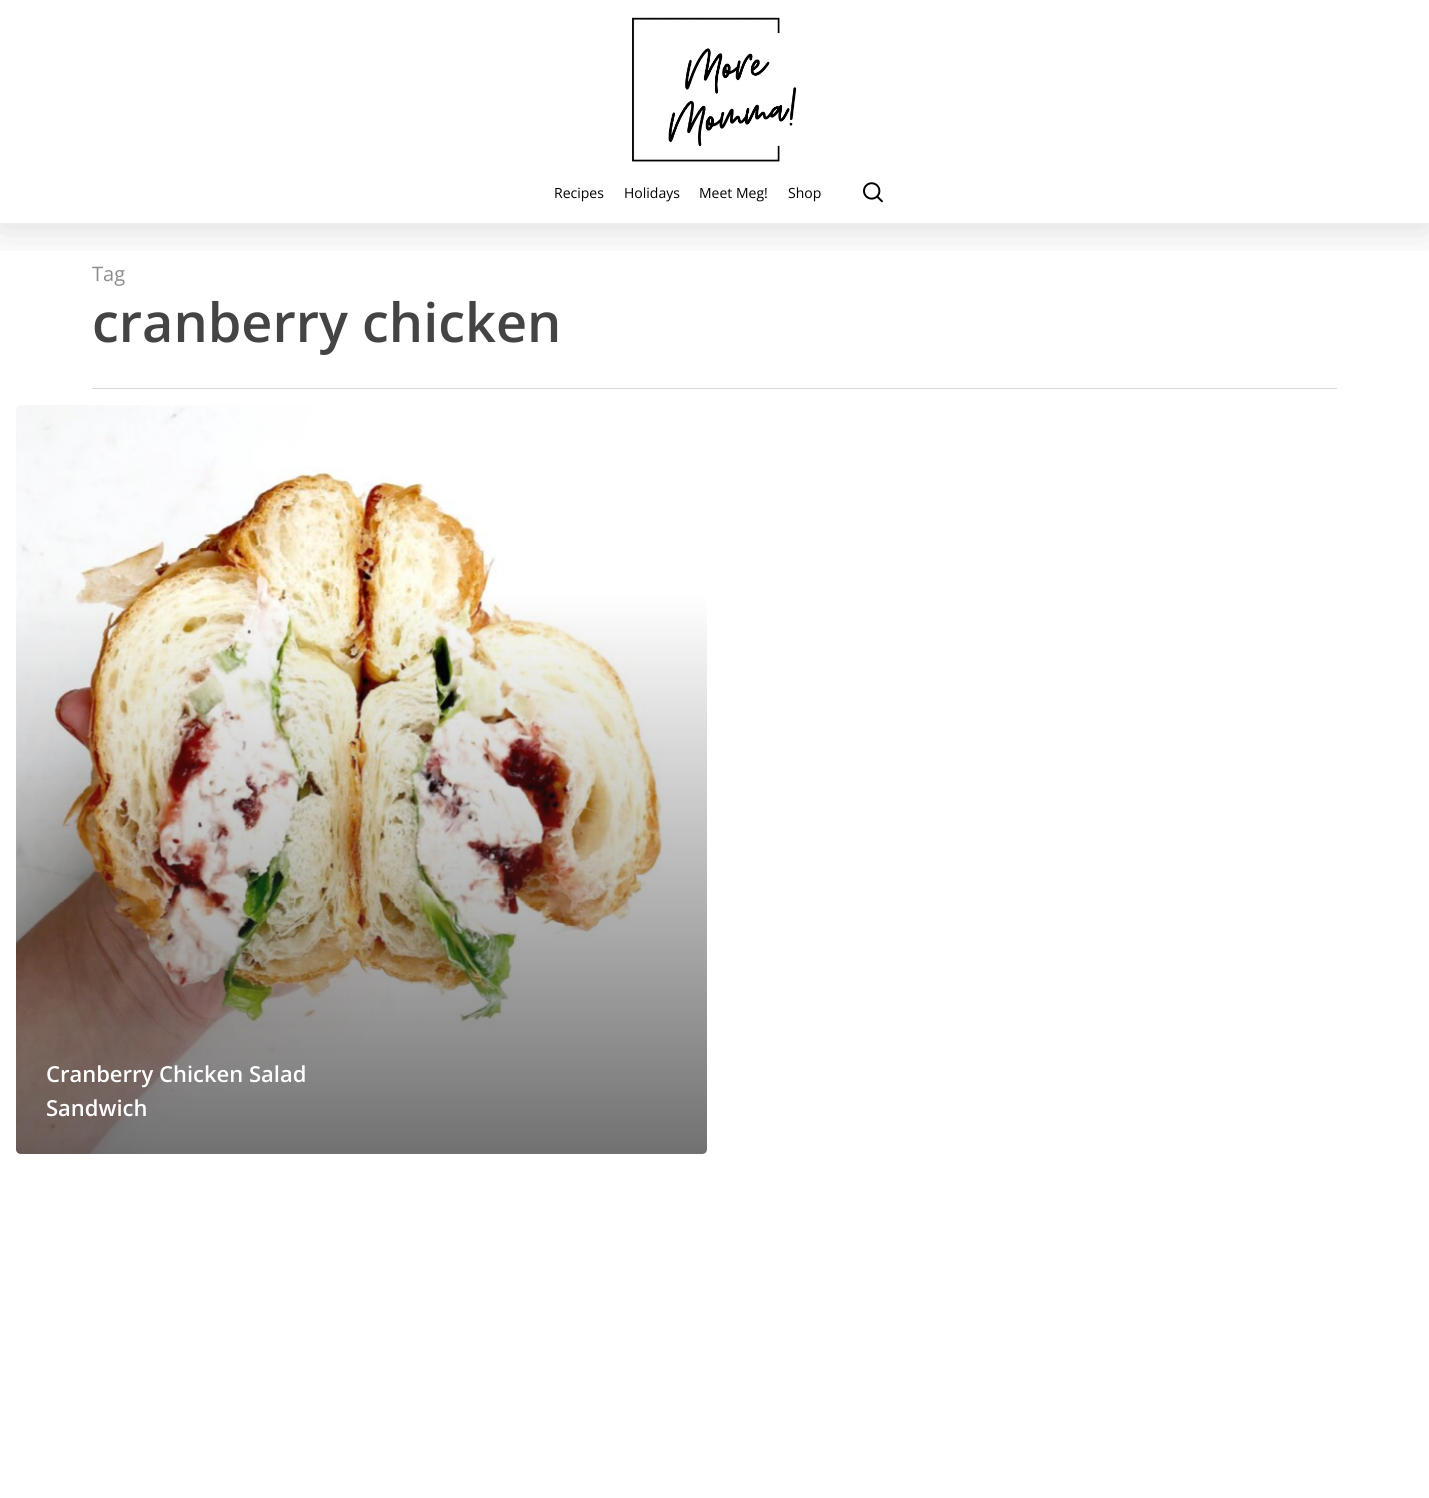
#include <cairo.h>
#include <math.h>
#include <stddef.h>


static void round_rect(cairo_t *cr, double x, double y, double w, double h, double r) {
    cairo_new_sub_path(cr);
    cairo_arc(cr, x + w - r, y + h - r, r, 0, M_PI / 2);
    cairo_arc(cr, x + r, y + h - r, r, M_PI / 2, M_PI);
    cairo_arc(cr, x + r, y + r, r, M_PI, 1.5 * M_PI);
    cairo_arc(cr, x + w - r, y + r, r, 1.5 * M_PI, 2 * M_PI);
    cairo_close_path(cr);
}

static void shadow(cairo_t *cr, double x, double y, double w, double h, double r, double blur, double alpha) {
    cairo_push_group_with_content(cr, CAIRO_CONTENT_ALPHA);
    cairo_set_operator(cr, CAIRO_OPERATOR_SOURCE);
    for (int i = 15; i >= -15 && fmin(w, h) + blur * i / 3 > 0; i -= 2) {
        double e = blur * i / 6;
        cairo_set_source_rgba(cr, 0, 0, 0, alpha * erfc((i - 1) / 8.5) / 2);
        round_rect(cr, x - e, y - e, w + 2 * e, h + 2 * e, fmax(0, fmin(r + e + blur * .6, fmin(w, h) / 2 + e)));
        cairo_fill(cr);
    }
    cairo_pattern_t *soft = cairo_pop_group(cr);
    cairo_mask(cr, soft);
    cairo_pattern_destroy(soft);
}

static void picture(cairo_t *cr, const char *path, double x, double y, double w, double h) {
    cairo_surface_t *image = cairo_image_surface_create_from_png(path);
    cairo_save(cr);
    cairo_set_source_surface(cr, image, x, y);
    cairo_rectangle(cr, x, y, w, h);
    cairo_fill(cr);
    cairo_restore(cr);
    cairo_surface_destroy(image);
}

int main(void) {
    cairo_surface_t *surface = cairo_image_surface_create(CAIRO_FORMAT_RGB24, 1429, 1498);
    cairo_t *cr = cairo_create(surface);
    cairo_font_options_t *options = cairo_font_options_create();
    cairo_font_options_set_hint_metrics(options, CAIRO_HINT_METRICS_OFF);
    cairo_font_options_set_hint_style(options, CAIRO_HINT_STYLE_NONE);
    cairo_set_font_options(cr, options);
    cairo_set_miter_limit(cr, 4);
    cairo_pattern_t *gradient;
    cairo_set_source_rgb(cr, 1, 1, 1);
    cairo_paint(cr);
    cairo_save(cr);
    cairo_rectangle(cr, 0, 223, 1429, 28);
    cairo_clip(cr);
    cairo_set_source_rgb(cr, 0, 0, 0);
    shadow(cr, 0, 3, 1429, 223, 0, 22.5, 0.15);
    cairo_restore(cr);
    picture(cr, "img1.png", 632, 17, 165, 145);
    cairo_select_font_face(cr, "Open Sans", CAIRO_FONT_SLANT_NORMAL, CAIRO_FONT_WEIGHT_NORMAL);
    cairo_set_font_size(cr, 14);
    cairo_set_source_rgb(cr, 0, 0, 0);
    cairo_move_to(cr, 554, 198);
    cairo_show_text(cr, "Recipes");
    cairo_move_to(cr, 624, 198);
    cairo_show_text(cr, "Holidays");
    cairo_move_to(cr, 699, 198);
    cairo_show_text(cr, "Meet Meg!");
    cairo_move_to(cr, 788, 198);
    cairo_show_text(cr, "Shop");
    picture(cr, "img2.png", 863, 182, 20, 21);
    cairo_set_source_rgb(cr, 0.851, 0.851, 0.851);
    cairo_rectangle(cr, 92, 388, 1245, 1);
    cairo_fill(cr);
    cairo_set_font_size(cr, 20);
    cairo_set_source_rgb(cr, 0.549, 0.549, 0.549);
    cairo_move_to(cr, 92, 281);
    cairo_show_text(cr, "Tag");
    cairo_select_font_face(cr, "Open Sans SemiBold", CAIRO_FONT_SLANT_NORMAL, CAIRO_FONT_WEIGHT_NORMAL);
    cairo_set_font_size(cr, 54);
    cairo_set_source_rgb(cr, 0.267, 0.267, 0.267);
    cairo_move_to(cr, 92, 342);
    cairo_show_text(cr, "cranberry chicken");
    picture(cr, "img3.png", 16, 405, 691, 749);
    gradient = cairo_pattern_create_linear(363, 594, 363, 1158);
    cairo_pattern_add_color_stop_rgba(gradient, 0, 0.137, 0.137, 0.137, 0);
    cairo_pattern_add_color_stop_rgba(gradient, 1, 0.137, 0.137, 0.137, 0.65);
    cairo_set_source(cr, gradient);
    cairo_pattern_destroy(gradient);
    cairo_new_path(cr);
    cairo_move_to(cr, 16, 594);
    cairo_line_to(cr, 707, 594);
    cairo_line_to(cr, 707, 1149);
    cairo_curve_to(cr, 707, 1152, 705, 1154, 702, 1154);
    cairo_line_to(cr, 21, 1154);
    cairo_curve_to(cr, 18, 1154, 16, 1152, 16, 1149);
    cairo_close_path(cr);
    cairo_fill(cr);
    cairo_set_font_size(cr, 22);
    cairo_set_source_rgb(cr, 1, 1, 1);
    cairo_move_to(cr, 46, 1082);
    cairo_show_text(cr, "Cranberry Chicken Salad");
    cairo_move_to(cr, 46, 1116);
    cairo_show_text(cr, "Sandwich");
    cairo_surface_write_to_png(surface, "page.png");
    cairo_font_options_destroy(options);
    cairo_destroy(cr);
    cairo_surface_destroy(surface);
    return 0;
}
